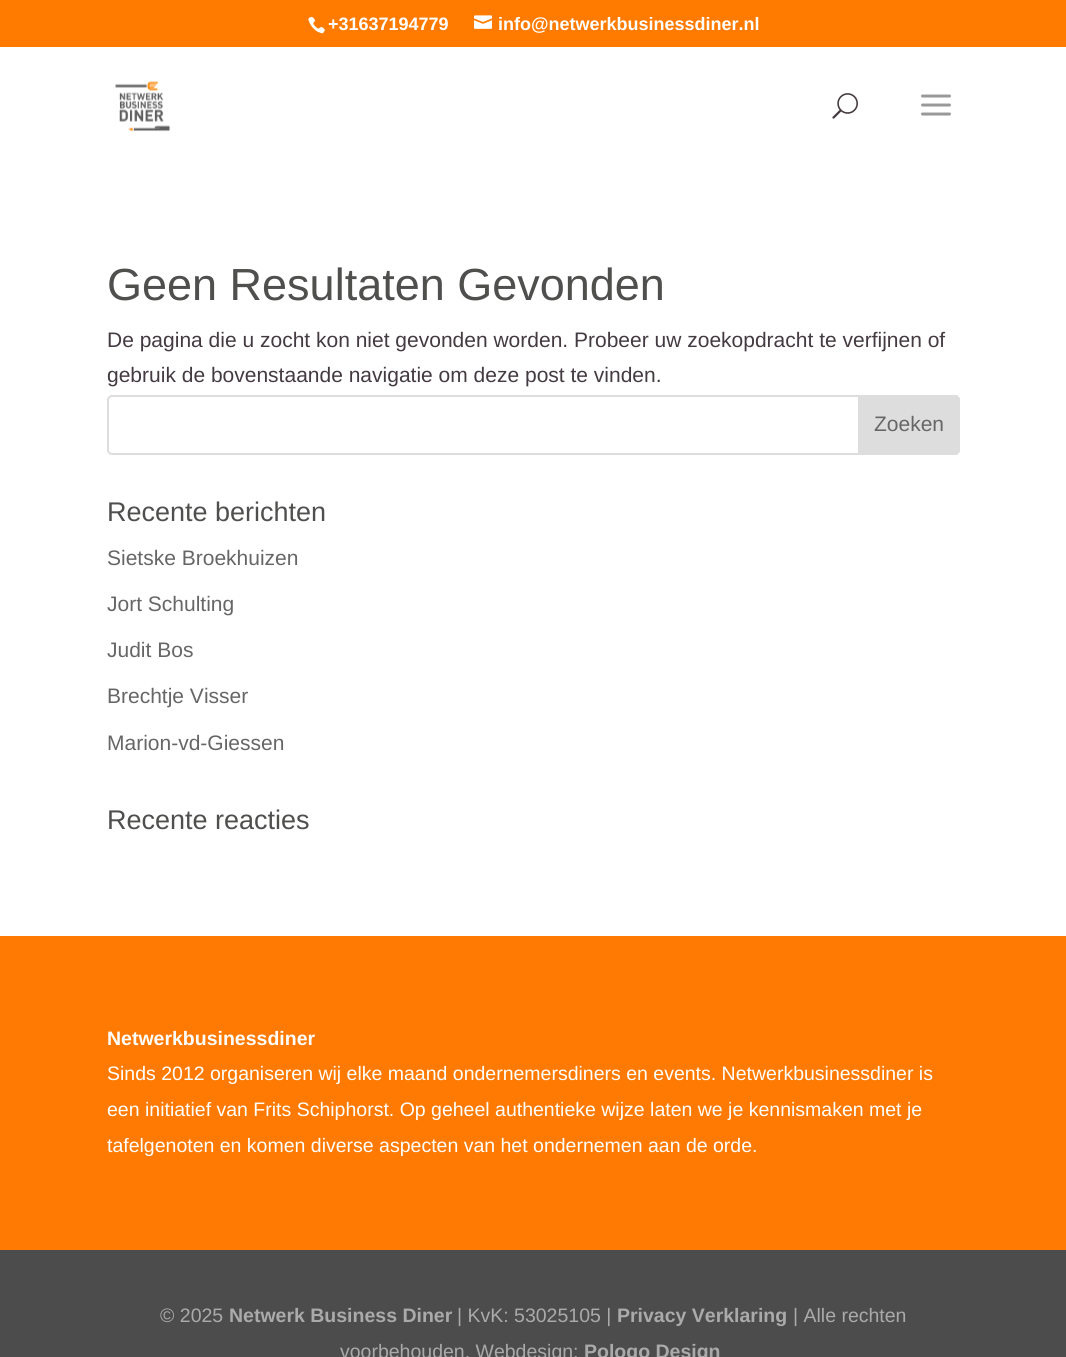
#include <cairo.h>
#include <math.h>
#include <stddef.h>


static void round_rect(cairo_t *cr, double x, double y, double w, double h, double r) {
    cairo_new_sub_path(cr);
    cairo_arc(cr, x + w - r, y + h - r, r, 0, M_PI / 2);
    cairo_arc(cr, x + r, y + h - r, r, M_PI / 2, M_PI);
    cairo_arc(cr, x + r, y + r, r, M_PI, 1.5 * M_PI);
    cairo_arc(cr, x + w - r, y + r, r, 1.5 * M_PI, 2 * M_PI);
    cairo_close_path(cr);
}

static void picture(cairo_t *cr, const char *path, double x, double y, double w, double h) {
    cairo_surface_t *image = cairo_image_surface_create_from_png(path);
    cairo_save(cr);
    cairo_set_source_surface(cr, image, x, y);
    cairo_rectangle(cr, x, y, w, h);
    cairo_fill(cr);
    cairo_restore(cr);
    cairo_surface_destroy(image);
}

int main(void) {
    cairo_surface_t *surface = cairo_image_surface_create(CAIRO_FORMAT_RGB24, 1066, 1357);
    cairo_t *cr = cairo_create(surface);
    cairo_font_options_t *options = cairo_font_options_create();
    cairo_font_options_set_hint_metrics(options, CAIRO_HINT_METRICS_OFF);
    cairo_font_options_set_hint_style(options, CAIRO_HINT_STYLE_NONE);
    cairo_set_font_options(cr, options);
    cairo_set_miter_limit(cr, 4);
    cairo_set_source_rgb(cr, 1, 1, 1);
    cairo_paint(cr);
    cairo_set_source_rgb(cr, 1, 0.482, 0);
    cairo_rectangle(cr, 0, 0, 1066, 47);
    cairo_fill(cr);
    picture(cr, "img1.png", 308, 16, 17, 18);
    cairo_select_font_face(cr, "Liberation Sans", CAIRO_FONT_SLANT_NORMAL, CAIRO_FONT_WEIGHT_BOLD);
    cairo_set_font_size(cr, 18);
    cairo_set_source_rgb(cr, 1, 1, 1);
    cairo_move_to(cr, 328, 30);
    cairo_show_text(cr, "+31637194779");
    picture(cr, "img2.png", 474, 15, 18, 14);
    cairo_move_to(cr, 498, 30);
    cairo_show_text(cr, "info@netwerkbusinessdiner.nl");
    picture(cr, "img3.png", 115, 81, 55, 51);
    picture(cr, "img4.png", 832, 93, 26, 26);
    picture(cr, "img5.png", 921, 94, 30, 22);
    cairo_select_font_face(cr, "Liberation Sans", CAIRO_FONT_SLANT_NORMAL, CAIRO_FONT_WEIGHT_NORMAL);
    cairo_set_font_size(cr, 45);
    cairo_set_source_rgb(cr, 0.31, 0.31, 0.306);
    cairo_move_to(cr, 107, 300);
    cairo_show_text(cr, "Geen Resultaten Gevonden");
    cairo_set_font_size(cr, 21);
    cairo_set_source_rgb(cr, 0.267, 0.227, 0.255);
    cairo_move_to(cr, 107, 347);
    cairo_show_text(cr, "De pagina die u zocht kon niet gevonden worden. Probeer uw zoekopdracht te verfijnen of");
    cairo_move_to(cr, 107, 382);
    cairo_show_text(cr, "gebruik de bovenstaande navigatie om deze post te vinden.");
    round_rect(cr, 108, 396, 851, 58, 4);
    cairo_set_source_rgb(cr, 0.867, 0.867, 0.867);
    cairo_stroke(cr);
    cairo_new_path(cr);
    cairo_move_to(cr, 859, 396);
    cairo_line_to(cr, 955, 396);
    cairo_curve_to(cr, 957, 396, 959, 398, 959, 400);
    cairo_line_to(cr, 959, 450);
    cairo_curve_to(cr, 959, 452, 957, 454, 955, 454);
    cairo_line_to(cr, 859, 454);
    cairo_close_path(cr);
    cairo_fill_preserve(cr);
    cairo_stroke(cr);
    cairo_set_source_rgb(cr, 0.4, 0.4, 0.4);
    cairo_move_to(cr, 874, 431);
    cairo_show_text(cr, "Zoeken");
    cairo_set_font_size(cr, 27);
    cairo_set_source_rgb(cr, 0.31, 0.31, 0.306);
    cairo_move_to(cr, 107, 521);
    cairo_show_text(cr, "Recente berichten");
    cairo_set_font_size(cr, 21);
    cairo_set_source_rgb(cr, 0.4, 0.4, 0.4);
    cairo_move_to(cr, 107, 565);
    cairo_show_text(cr, "Sietske Broekhuizen");
    cairo_move_to(cr, 107, 611);
    cairo_show_text(cr, "Jort Schulting");
    cairo_move_to(cr, 107, 657);
    cairo_show_text(cr, "Judit Bos");
    cairo_move_to(cr, 107, 703);
    cairo_show_text(cr, "Brechtje Visser");
    cairo_move_to(cr, 107, 750);
    cairo_show_text(cr, "Marion-vd-Giessen");
    cairo_set_font_size(cr, 27);
    cairo_set_source_rgb(cr, 0.31, 0.31, 0.306);
    cairo_move_to(cr, 107, 829);
    cairo_show_text(cr, "Recente reacties");
    cairo_set_source_rgb(cr, 0.996, 0.478, 0.008);
    cairo_rectangle(cr, 0, 936, 1066, 314);
    cairo_fill(cr);
    cairo_select_font_face(cr, "Liberation Sans", CAIRO_FONT_SLANT_NORMAL, CAIRO_FONT_WEIGHT_BOLD);
    cairo_set_font_size(cr, 19.5);
    cairo_set_source_rgb(cr, 1, 1, 1);
    cairo_move_to(cr, 107, 1045);
    cairo_show_text(cr, "Netwerkbusinessdiner");
    cairo_select_font_face(cr, "Liberation Sans", CAIRO_FONT_SLANT_NORMAL, CAIRO_FONT_WEIGHT_NORMAL);
    cairo_move_to(cr, 107, 1080);
    cairo_show_text(cr, "Sinds 2012 organiseren wij elke maand ondernemersdiners en events. Netwerkbusinessdiner is");
    cairo_move_to(cr, 107, 1116);
    cairo_show_text(cr, "een initiatief van Frits Schiphorst. Op geheel authentieke wijze laten we je kennismaken met je");
    cairo_move_to(cr, 107, 1152);
    cairo_show_text(cr, "tafelgenoten en komen diverse aspecten van het ondernemen aan de orde.");
    cairo_set_source_rgb(cr, 0.298, 0.298, 0.298);
    cairo_rectangle(cr, 0, 1250, 1066, 107);
    cairo_fill(cr);
    cairo_set_source_rgb(cr, 0.667, 0.667, 0.667);
    cairo_move_to(cr, 160, 1322);
    cairo_show_text(cr, "© 2025");
    cairo_select_font_face(cr, "Liberation Sans", CAIRO_FONT_SLANT_NORMAL, CAIRO_FONT_WEIGHT_BOLD);
    cairo_move_to(cr, 229, 1322);
    cairo_show_text(cr, "Netwerk Business Diner");
    cairo_select_font_face(cr, "Liberation Sans", CAIRO_FONT_SLANT_NORMAL, CAIRO_FONT_WEIGHT_NORMAL);
    cairo_move_to(cr, 457, 1322);
    cairo_show_text(cr, "| KvK: 53025105 |");
    cairo_select_font_face(cr, "Liberation Sans", CAIRO_FONT_SLANT_NORMAL, CAIRO_FONT_WEIGHT_BOLD);
    cairo_move_to(cr, 617, 1322);
    cairo_show_text(cr, "Privacy Verklaring");
    cairo_select_font_face(cr, "Liberation Sans", CAIRO_FONT_SLANT_NORMAL, CAIRO_FONT_WEIGHT_NORMAL);
    cairo_move_to(cr, 793, 1322);
    cairo_show_text(cr, "| Alle rechten");
    cairo_move_to(cr, 340, 1358);
    cairo_show_text(cr, "voorbehouden. Webdesign:");
    cairo_select_font_face(cr, "Liberation Sans", CAIRO_FONT_SLANT_NORMAL, CAIRO_FONT_WEIGHT_BOLD);
    cairo_move_to(cr, 584, 1358);
    cairo_show_text(cr, "Pologo Design");
    cairo_surface_write_to_png(surface, "page.png");
    cairo_font_options_destroy(options);
    cairo_destroy(cr);
    cairo_surface_destroy(surface);
    return 0;
}
